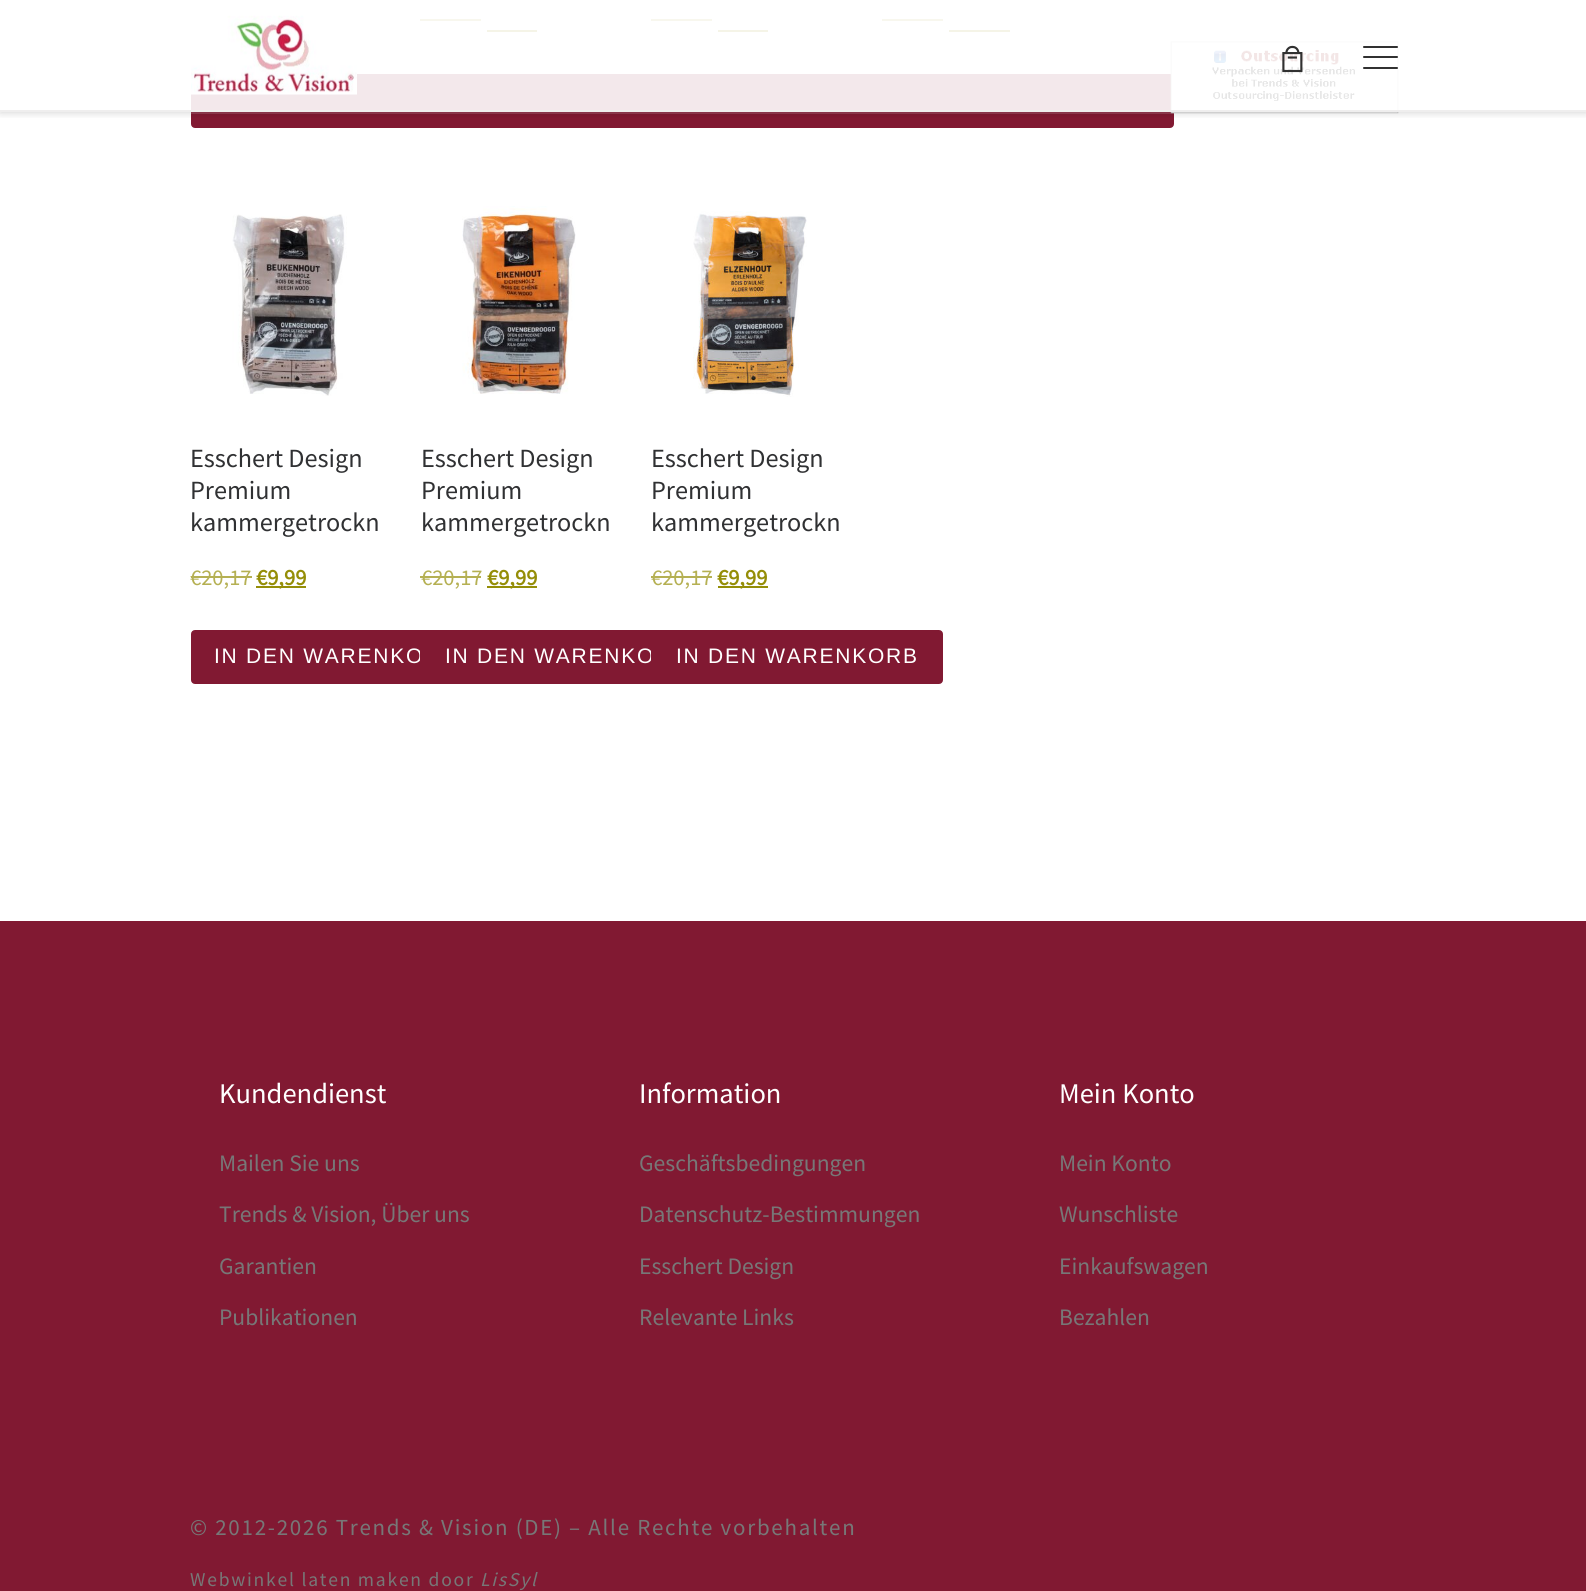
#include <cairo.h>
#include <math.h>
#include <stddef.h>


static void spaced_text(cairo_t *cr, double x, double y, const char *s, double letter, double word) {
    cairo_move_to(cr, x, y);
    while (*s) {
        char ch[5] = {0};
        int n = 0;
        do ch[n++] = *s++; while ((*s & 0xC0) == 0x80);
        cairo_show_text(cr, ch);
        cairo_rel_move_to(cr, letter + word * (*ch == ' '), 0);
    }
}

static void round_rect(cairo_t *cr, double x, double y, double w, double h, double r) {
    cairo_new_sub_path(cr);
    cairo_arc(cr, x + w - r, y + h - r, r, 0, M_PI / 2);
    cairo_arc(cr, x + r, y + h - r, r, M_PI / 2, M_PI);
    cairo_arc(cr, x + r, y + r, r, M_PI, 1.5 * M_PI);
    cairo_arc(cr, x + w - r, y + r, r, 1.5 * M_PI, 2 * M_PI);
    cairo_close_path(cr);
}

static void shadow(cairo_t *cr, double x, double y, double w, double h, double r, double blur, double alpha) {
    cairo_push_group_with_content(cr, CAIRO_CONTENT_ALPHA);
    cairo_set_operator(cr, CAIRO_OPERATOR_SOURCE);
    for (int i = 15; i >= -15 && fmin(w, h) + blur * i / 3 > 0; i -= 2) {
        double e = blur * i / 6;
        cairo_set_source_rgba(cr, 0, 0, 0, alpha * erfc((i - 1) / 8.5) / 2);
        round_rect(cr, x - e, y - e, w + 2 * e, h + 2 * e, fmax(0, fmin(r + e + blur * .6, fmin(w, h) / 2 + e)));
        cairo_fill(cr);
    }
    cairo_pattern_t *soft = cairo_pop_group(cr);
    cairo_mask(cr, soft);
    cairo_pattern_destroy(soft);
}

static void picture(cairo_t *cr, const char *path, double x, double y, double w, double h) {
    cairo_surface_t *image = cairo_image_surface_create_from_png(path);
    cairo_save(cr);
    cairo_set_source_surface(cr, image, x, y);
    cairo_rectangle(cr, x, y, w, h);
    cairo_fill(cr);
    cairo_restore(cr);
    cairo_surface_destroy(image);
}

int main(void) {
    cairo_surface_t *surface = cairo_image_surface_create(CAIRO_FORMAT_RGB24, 1586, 1591);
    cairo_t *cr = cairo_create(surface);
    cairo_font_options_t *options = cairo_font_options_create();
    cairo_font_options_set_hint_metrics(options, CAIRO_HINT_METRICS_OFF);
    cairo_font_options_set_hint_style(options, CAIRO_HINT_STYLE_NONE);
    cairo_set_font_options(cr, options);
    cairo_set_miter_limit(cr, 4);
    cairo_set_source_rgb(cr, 1, 1, 1);
    cairo_paint(cr);
    cairo_set_source_rgb(cr, 0.506, 0.098, 0.196);
    round_rect(cr, 193, 76, 286, 50, 2);
    cairo_fill_preserve(cr);
    cairo_set_line_width(cr, 4);
    cairo_stroke(cr);
    round_rect(cr, 422, 76, 288, 50, 2);
    cairo_fill_preserve(cr);
    cairo_stroke(cr);
    round_rect(cr, 653, 76, 288, 50, 2);
    cairo_fill_preserve(cr);
    cairo_stroke(cr);
    round_rect(cr, 884, 76, 288, 50, 2);
    cairo_fill_preserve(cr);
    cairo_stroke(cr);
    picture(cr, "img3.png", 1170, 41, 229, 73);
    cairo_set_source_rgba(cr, 1, 1, 1, 0.15);
    cairo_rectangle(cr, 191, 112, 1207, 2);
    cairo_fill(cr);
    cairo_set_source_rgb(cr, 0.71, 0.69, 0.325);
    cairo_rectangle(cr, 420, 19, 61, 2);
    cairo_fill(cr);
    cairo_set_source_rgb(cr, 0.584, 0.557, 0.035);
    cairo_rectangle(cr, 487, 30, 50, 2);
    cairo_fill(cr);
    cairo_set_source_rgb(cr, 0.71, 0.69, 0.325);
    cairo_rectangle(cr, 651, 19, 61, 2);
    cairo_fill(cr);
    cairo_set_source_rgb(cr, 0.584, 0.557, 0.035);
    cairo_rectangle(cr, 718, 30, 50, 2);
    cairo_fill(cr);
    cairo_set_source_rgb(cr, 0.71, 0.69, 0.325);
    cairo_rectangle(cr, 882, 19, 61, 2);
    cairo_fill(cr);
    cairo_set_source_rgb(cr, 0.584, 0.557, 0.035);
    cairo_rectangle(cr, 949, 30, 61, 2);
    cairo_fill(cr);
    cairo_save(cr);
    cairo_rectangle(cr, 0, 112, 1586, 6);
    cairo_clip(cr);
    cairo_set_source_rgb(cr, 0, 0, 0);
    shadow(cr, 0, 0, 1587, 112, 0, 4.5, 0.2);
    cairo_restore(cr);
    cairo_set_source_rgba(cr, 1, 1, 1, 0.9);
    cairo_rectangle(cr, 191, 19, 1208, 91);
    cairo_fill(cr);
    picture(cr, "img1.png", 191, 15, 166, 80);
    picture(cr, "img2.png", 1282, 45, 21, 28);
    cairo_set_source_rgb(cr, 0.192, 0.192, 0.192);
    round_rect(cr, 1363, 46, 35, 2, 1);
    cairo_fill(cr);
    round_rect(cr, 1363, 56, 35, 2, 1);
    cairo_fill(cr);
    round_rect(cr, 1363, 67, 35, 2, 1);
    cairo_fill(cr);
    cairo_set_source_rgb(cr, 0.937, 0.933, 0.933);
    cairo_rectangle(cr, 0, 110, 1586, 2);
    cairo_fill(cr);
    picture(cr, "img4.png", 232, 214, 115, 182);
    cairo_select_font_face(cr, "Source Sans Pro", CAIRO_FONT_SLANT_NORMAL, CAIRO_FONT_WEIGHT_NORMAL);
    cairo_set_font_size(cr, 26.25);
    cairo_set_source_rgb(cr, 0.188, 0.192, 0.2);
    cairo_move_to(cr, 190, 467);
    cairo_show_text(cr, "Esschert Design");
    cairo_move_to(cr, 190, 499);
    cairo_show_text(cr, "Premium");
    cairo_move_to(cr, 190, 531);
    cairo_show_text(cr, "kammergetrockn");
    cairo_set_font_size(cr, 22.5);
    cairo_set_source_rgb(cr, 0.71, 0.69, 0.325);
    cairo_move_to(cr, 190, 585);
    cairo_show_text(cr, "€20,17");
    cairo_rectangle(cr, 191, 576, 61, 2);
    cairo_fill(cr);
    cairo_set_source_rgb(cr, 0.584, 0.557, 0.035);
    cairo_rectangle(cr, 256, 586, 50, 2);
    cairo_fill(cr);
    cairo_select_font_face(cr, "Source Sans Pro", CAIRO_FONT_SLANT_NORMAL, CAIRO_FONT_WEIGHT_BOLD);
    cairo_move_to(cr, 256, 585);
    cairo_show_text(cr, "€9,99");
    cairo_set_source_rgb(cr, 0.506, 0.098, 0.196);
    round_rect(cr, 193, 632, 286, 50, 2);
    cairo_fill_preserve(cr);
    cairo_stroke(cr);
    cairo_select_font_face(cr, "Liberation Sans", CAIRO_FONT_SLANT_NORMAL, CAIRO_FONT_WEIGHT_NORMAL);
    cairo_set_font_size(cr, 21);
    cairo_set_source_rgb(cr, 1, 1, 1);
    spaced_text(cr, 214, 663, "IN DEN WARENKO", 1.75, 0);
    picture(cr, "img5.png", 462, 206, 114, 188);
    cairo_select_font_face(cr, "Source Sans Pro", CAIRO_FONT_SLANT_NORMAL, CAIRO_FONT_WEIGHT_NORMAL);
    cairo_set_font_size(cr, 26.25);
    cairo_set_source_rgb(cr, 0.188, 0.192, 0.2);
    cairo_move_to(cr, 421, 467);
    cairo_show_text(cr, "Esschert Design");
    cairo_move_to(cr, 421, 499);
    cairo_show_text(cr, "Premium");
    cairo_move_to(cr, 421, 531);
    cairo_show_text(cr, "kammergetrockn");
    cairo_set_font_size(cr, 22.5);
    cairo_set_source_rgb(cr, 0.71, 0.69, 0.325);
    cairo_move_to(cr, 421, 585);
    cairo_show_text(cr, "€20,17");
    cairo_rectangle(cr, 420, 576, 61, 2);
    cairo_fill(cr);
    cairo_set_source_rgb(cr, 0.584, 0.557, 0.035);
    cairo_rectangle(cr, 487, 586, 50, 2);
    cairo_fill(cr);
    cairo_select_font_face(cr, "Source Sans Pro", CAIRO_FONT_SLANT_NORMAL, CAIRO_FONT_WEIGHT_BOLD);
    cairo_move_to(cr, 487, 585);
    cairo_show_text(cr, "€9,99");
    cairo_set_source_rgb(cr, 0.506, 0.098, 0.196);
    round_rect(cr, 422, 632, 288, 50, 2);
    cairo_fill_preserve(cr);
    cairo_stroke(cr);
    cairo_select_font_face(cr, "Liberation Sans", CAIRO_FONT_SLANT_NORMAL, CAIRO_FONT_WEIGHT_NORMAL);
    cairo_set_font_size(cr, 21);
    cairo_set_source_rgb(cr, 1, 1, 1);
    spaced_text(cr, 445, 663, "IN DEN WARENKO", 1.75, 0);
    picture(cr, "img6.png", 693, 211, 114, 186);
    cairo_select_font_face(cr, "Source Sans Pro", CAIRO_FONT_SLANT_NORMAL, CAIRO_FONT_WEIGHT_NORMAL);
    cairo_set_font_size(cr, 26.25);
    cairo_set_source_rgb(cr, 0.188, 0.192, 0.2);
    cairo_move_to(cr, 651, 467);
    cairo_show_text(cr, "Esschert Design");
    cairo_move_to(cr, 651, 499);
    cairo_show_text(cr, "Premium");
    cairo_move_to(cr, 651, 531);
    cairo_show_text(cr, "kammergetrockn");
    cairo_set_font_size(cr, 22.5);
    cairo_set_source_rgb(cr, 0.71, 0.69, 0.325);
    cairo_move_to(cr, 651, 585);
    cairo_show_text(cr, "€20,17");
    cairo_rectangle(cr, 651, 576, 61, 2);
    cairo_fill(cr);
    cairo_set_source_rgb(cr, 0.584, 0.557, 0.035);
    cairo_rectangle(cr, 718, 586, 50, 2);
    cairo_fill(cr);
    cairo_select_font_face(cr, "Source Sans Pro", CAIRO_FONT_SLANT_NORMAL, CAIRO_FONT_WEIGHT_BOLD);
    cairo_move_to(cr, 717, 585);
    cairo_show_text(cr, "€9,99");
    cairo_set_source_rgb(cr, 0.506, 0.098, 0.196);
    round_rect(cr, 653, 632, 288, 50, 2);
    cairo_fill_preserve(cr);
    cairo_stroke(cr);
    cairo_select_font_face(cr, "Liberation Sans", CAIRO_FONT_SLANT_NORMAL, CAIRO_FONT_WEIGHT_NORMAL);
    cairo_set_font_size(cr, 21);
    cairo_set_source_rgb(cr, 1, 1, 1);
    spaced_text(cr, 676, 663, "IN DEN WARENKORB", 1.75, 0);
    cairo_set_source_rgb(cr, 0.506, 0.098, 0.196);
    cairo_rectangle(cr, 0, 921, 1586, 670);
    cairo_fill(cr);
    cairo_select_font_face(cr, "Source Sans Pro", CAIRO_FONT_SLANT_NORMAL, CAIRO_FONT_WEIGHT_NORMAL);
    cairo_set_font_size(cr, 28.5);
    cairo_set_source_rgb(cr, 1, 1, 1);
    cairo_move_to(cr, 219, 1103);
    cairo_show_text(cr, "Kundendienst");
    cairo_set_font_size(cr, 23.6);
    cairo_set_source_rgb(cr, 0.467, 0.467, 0.467);
    cairo_move_to(cr, 219, 1171);
    cairo_show_text(cr, "Mailen Sie uns");
    cairo_move_to(cr, 219, 1222);
    cairo_show_text(cr, "Trends & Vision, Über uns");
    cairo_move_to(cr, 219, 1274);
    cairo_show_text(cr, "Garantien");
    cairo_move_to(cr, 219, 1325);
    cairo_show_text(cr, "Publikationen");
    cairo_set_font_size(cr, 28.5);
    cairo_set_source_rgb(cr, 1, 1, 1);
    cairo_move_to(cr, 639, 1103);
    cairo_show_text(cr, "Information");
    cairo_set_font_size(cr, 23.6);
    cairo_set_source_rgb(cr, 0.467, 0.467, 0.467);
    cairo_move_to(cr, 639, 1171);
    cairo_show_text(cr, "Geschäftsbedingungen");
    cairo_move_to(cr, 639, 1222);
    cairo_show_text(cr, "Datenschutz-Bestimmungen");
    cairo_move_to(cr, 639, 1274);
    cairo_show_text(cr, "Esschert Design");
    cairo_move_to(cr, 639, 1325);
    cairo_show_text(cr, "Relevante Links");
    cairo_set_font_size(cr, 28.5);
    cairo_set_source_rgb(cr, 1, 1, 1);
    cairo_move_to(cr, 1059, 1103);
    cairo_show_text(cr, "Mein Konto");
    cairo_set_font_size(cr, 23.6);
    cairo_set_source_rgb(cr, 0.467, 0.467, 0.467);
    cairo_move_to(cr, 1059, 1171);
    cairo_show_text(cr, "Mein Konto");
    cairo_move_to(cr, 1059, 1222);
    cairo_show_text(cr, "Wunschliste");
    cairo_move_to(cr, 1059, 1274);
    cairo_show_text(cr, "Einkaufswagen");
    cairo_move_to(cr, 1059, 1325);
    cairo_show_text(cr, "Bezahlen");
    cairo_set_font_size(cr, 22.95);
    spaced_text(cr, 190, 1535, "© 2012-2026 Trends & Vision (DE) – Alle Rechte vorbehalten", 1.75, 0);
    cairo_set_font_size(cr, 19.6);
    spaced_text(cr, 190, 1586, "Webwinkel laten maken door", 1.75, 0);
    cairo_select_font_face(cr, "Source Sans Pro", CAIRO_FONT_SLANT_ITALIC, CAIRO_FONT_WEIGHT_NORMAL);
    spaced_text(cr, 480, 1586, "LisSyl", 1.75, 0);
    cairo_surface_write_to_png(surface, "page.png");
    cairo_font_options_destroy(options);
    cairo_destroy(cr);
    cairo_surface_destroy(surface);
    return 0;
}
